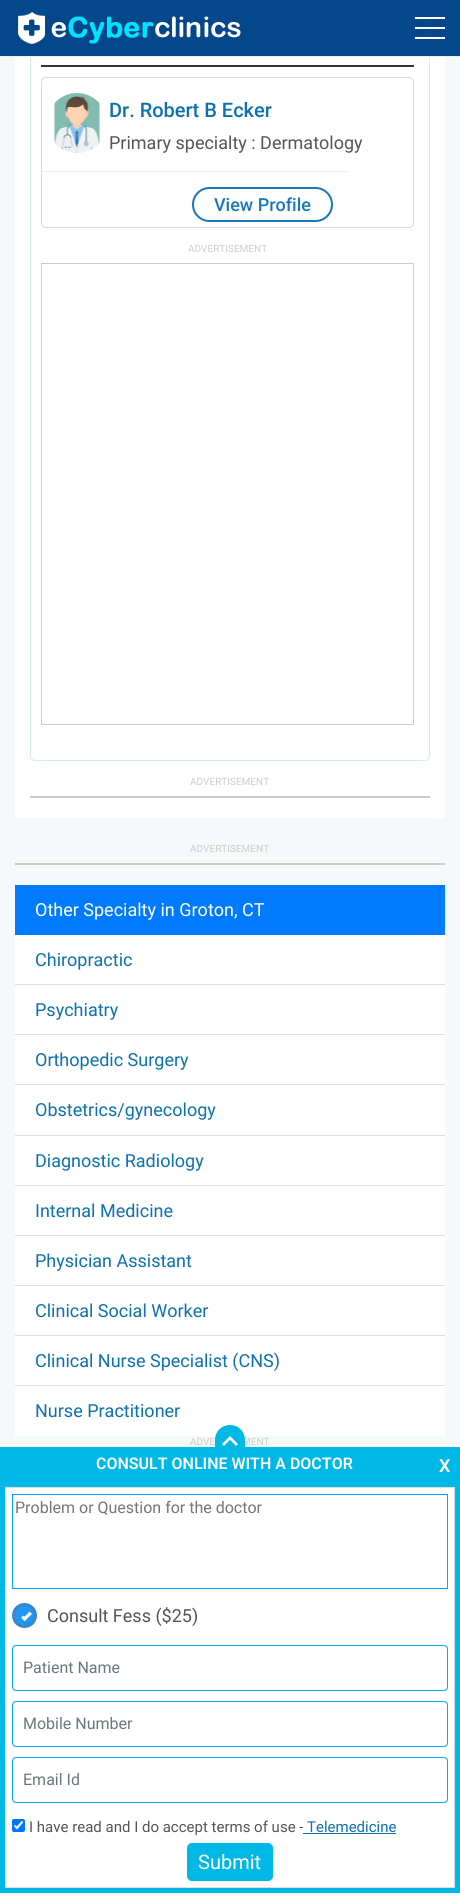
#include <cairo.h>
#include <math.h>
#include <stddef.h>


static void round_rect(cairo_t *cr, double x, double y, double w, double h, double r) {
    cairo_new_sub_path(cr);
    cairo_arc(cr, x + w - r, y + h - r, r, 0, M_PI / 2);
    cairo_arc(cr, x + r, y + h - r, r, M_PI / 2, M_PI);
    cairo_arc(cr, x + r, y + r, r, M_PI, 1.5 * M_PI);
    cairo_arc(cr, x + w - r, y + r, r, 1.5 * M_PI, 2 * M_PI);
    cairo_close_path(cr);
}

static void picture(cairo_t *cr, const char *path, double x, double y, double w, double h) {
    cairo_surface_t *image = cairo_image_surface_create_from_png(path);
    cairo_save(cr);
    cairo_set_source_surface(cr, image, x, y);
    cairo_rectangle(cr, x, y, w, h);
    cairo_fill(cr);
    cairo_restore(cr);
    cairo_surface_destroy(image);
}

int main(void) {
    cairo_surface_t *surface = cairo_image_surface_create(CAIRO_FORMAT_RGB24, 460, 1901);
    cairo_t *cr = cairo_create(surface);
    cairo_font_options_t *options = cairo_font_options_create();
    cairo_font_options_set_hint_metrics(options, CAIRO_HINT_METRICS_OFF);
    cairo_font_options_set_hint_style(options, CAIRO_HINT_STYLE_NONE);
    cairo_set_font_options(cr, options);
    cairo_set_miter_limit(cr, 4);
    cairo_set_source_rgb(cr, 0.961, 0.973, 0.98);
    cairo_paint(cr);
    cairo_set_source_rgb(cr, 1, 1, 1);
    cairo_rectangle(cr, 15, 57, 430, 761);
    cairo_fill(cr);
    round_rect(cr, 30.5, -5.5, 399, 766, 4.5);
    cairo_set_source_rgb(cr, 0.831, 0.925, 0.925);
    cairo_set_line_width(cr, 1);
    cairo_stroke(cr);
    cairo_set_source_rgb(cr, 0.016, 0.278, 0.541);
    cairo_rectangle(cr, 0, 0, 460, 56);
    cairo_fill(cr);
    cairo_set_source_rgb(cr, 0.929, 0.929, 0.929);
    cairo_rectangle(cr, 0, 56, 460, 1);
    cairo_fill(cr);
    picture(cr, "img1.png", 18, 12, 223, 32);
    cairo_set_source_rgb(cr, 1, 1, 1);
    cairo_rectangle(cr, 415, 27, 30, 2);
    cairo_fill(cr);
    cairo_rectangle(cr, 415, 17, 30, 2);
    cairo_fill(cr);
    cairo_rectangle(cr, 415, 37, 30, 2);
    cairo_fill(cr);
    cairo_set_source_rgb(cr, 0.2, 0.2, 0.2);
    cairo_rectangle(cr, 41, 65, 373, 2);
    cairo_fill(cr);
    round_rect(cr, 41.5, 77.5, 372, 150, 4.5);
    cairo_set_source_rgb(cr, 0.851, 0.851, 0.851);
    cairo_stroke(cr);
    picture(cr, "img2.png", 54, 93, 46, 60);
    cairo_select_font_face(cr, "Roboto Medium", CAIRO_FONT_SLANT_NORMAL, CAIRO_FONT_WEIGHT_NORMAL);
    cairo_set_font_size(cr, 20);
    cairo_set_source_rgb(cr, 0.051, 0.443, 0.686);
    cairo_move_to(cr, 109, 117);
    cairo_show_text(cr, "Dr. Robert B Ecker");
    cairo_select_font_face(cr, "Roboto", CAIRO_FONT_SLANT_NORMAL, CAIRO_FONT_WEIGHT_NORMAL);
    cairo_set_font_size(cr, 18);
    cairo_set_source_rgb(cr, 0.333, 0.333, 0.333);
    cairo_move_to(cr, 109, 149);
    cairo_show_text(cr, "Primary specialty : Dermatology");
    cairo_set_source_rgb(cr, 0.929, 0.929, 0.929);
    cairo_rectangle(cr, 40, 171, 308, 1);
    cairo_fill(cr);
    round_rect(cr, 193, 188, 139, 33, 16.5);
    cairo_set_source_rgb(cr, 0.09, 0.475, 0.729);
    cairo_set_line_width(cr, 2);
    cairo_stroke(cr);
    cairo_select_font_face(cr, "Roboto Medium", CAIRO_FONT_SLANT_NORMAL, CAIRO_FONT_WEIGHT_NORMAL);
    cairo_move_to(cr, 214, 211);
    cairo_show_text(cr, "View Profile");
    cairo_rectangle(cr, 41.5, 263.5, 372, 461);
    cairo_set_source_rgb(cr, 0.8, 0.8, 0.8);
    cairo_set_line_width(cr, 1);
    cairo_stroke(cr);
    cairo_select_font_face(cr, "Roboto", CAIRO_FONT_SLANT_NORMAL, CAIRO_FONT_WEIGHT_NORMAL);
    cairo_set_font_size(cr, 10);
    cairo_move_to(cr, 188, 252);
    cairo_show_text(cr, "ADVERTISEMENT");
    cairo_rectangle(cr, 30, 796, 400, 2);
    cairo_fill(cr);
    cairo_move_to(cr, 190, 785);
    cairo_show_text(cr, "ADVERTISEMENT");
    cairo_rectangle(cr, 15, 863, 430, 2);
    cairo_fill(cr);
    cairo_move_to(cr, 190, 852);
    cairo_show_text(cr, "ADVERTISEMENT");
    cairo_set_source_rgb(cr, 0, 0.482, 1);
    cairo_rectangle(cr, 15, 885, 430, 50);
    cairo_fill(cr);
    cairo_set_font_size(cr, 18);
    cairo_set_source_rgb(cr, 1, 1, 1);
    cairo_move_to(cr, 35, 916);
    cairo_show_text(cr, "Other Specialty in Groton, CT");
    cairo_rectangle(cr, 15, 935, 430, 49);
    cairo_fill(cr);
    cairo_set_source_rgb(cr, 0.051, 0.443, 0.686);
    cairo_move_to(cr, 35, 966);
    cairo_show_text(cr, "Chiropractic");
    cairo_set_source_rgb(cr, 1, 1, 1);
    cairo_rectangle(cr, 15, 985, 430, 49);
    cairo_fill(cr);
    cairo_set_source_rgb(cr, 0.875, 0.875, 0.875);
    cairo_rectangle(cr, 15, 984, 430, 1);
    cairo_fill(cr);
    cairo_set_source_rgb(cr, 0.051, 0.443, 0.686);
    cairo_move_to(cr, 35, 1016);
    cairo_show_text(cr, "Psychiatry");
    cairo_set_source_rgb(cr, 1, 1, 1);
    cairo_rectangle(cr, 15, 1035, 430, 49);
    cairo_fill(cr);
    cairo_set_source_rgb(cr, 0.875, 0.875, 0.875);
    cairo_rectangle(cr, 15, 1034, 430, 1);
    cairo_fill(cr);
    cairo_set_source_rgb(cr, 0.051, 0.443, 0.686);
    cairo_move_to(cr, 35, 1066);
    cairo_show_text(cr, "Orthopedic Surgery");
    cairo_set_source_rgb(cr, 1, 1, 1);
    cairo_rectangle(cr, 15, 1085, 430, 50);
    cairo_fill(cr);
    cairo_set_source_rgb(cr, 0.875, 0.875, 0.875);
    cairo_rectangle(cr, 15, 1084, 430, 1);
    cairo_fill(cr);
    cairo_set_source_rgb(cr, 0.051, 0.443, 0.686);
    cairo_move_to(cr, 35, 1116);
    cairo_show_text(cr, "Obstetrics/gynecology");
    cairo_set_source_rgb(cr, 1, 1, 1);
    cairo_rectangle(cr, 15, 1136, 430, 49);
    cairo_fill(cr);
    cairo_set_source_rgb(cr, 0.875, 0.875, 0.875);
    cairo_rectangle(cr, 15, 1135, 430, 1);
    cairo_fill(cr);
    cairo_set_source_rgb(cr, 0.051, 0.443, 0.686);
    cairo_move_to(cr, 35, 1167);
    cairo_show_text(cr, "Diagnostic Radiology");
    cairo_set_source_rgb(cr, 1, 1, 1);
    cairo_rectangle(cr, 15, 1186, 430, 49);
    cairo_fill(cr);
    cairo_set_source_rgb(cr, 0.875, 0.875, 0.875);
    cairo_rectangle(cr, 15, 1185, 430, 1);
    cairo_fill(cr);
    cairo_set_source_rgb(cr, 0.051, 0.443, 0.686);
    cairo_move_to(cr, 35, 1217);
    cairo_show_text(cr, "Internal Medicine");
    cairo_set_source_rgb(cr, 1, 1, 1);
    cairo_rectangle(cr, 15, 1236, 430, 49);
    cairo_fill(cr);
    cairo_set_source_rgb(cr, 0.875, 0.875, 0.875);
    cairo_rectangle(cr, 15, 1235, 430, 1);
    cairo_fill(cr);
    cairo_set_source_rgb(cr, 0.051, 0.443, 0.686);
    cairo_move_to(cr, 35, 1267);
    cairo_show_text(cr, "Physician Assistant");
    cairo_set_source_rgb(cr, 1, 1, 1);
    cairo_rectangle(cr, 15, 1286, 430, 49);
    cairo_fill(cr);
    cairo_set_source_rgb(cr, 0.875, 0.875, 0.875);
    cairo_rectangle(cr, 15, 1285, 430, 1);
    cairo_fill(cr);
    cairo_set_source_rgb(cr, 0.051, 0.443, 0.686);
    cairo_move_to(cr, 35, 1317);
    cairo_show_text(cr, "Clinical Social Worker");
    cairo_set_source_rgb(cr, 1, 1, 1);
    cairo_rectangle(cr, 15, 1336, 430, 49);
    cairo_fill(cr);
    cairo_set_source_rgb(cr, 0.875, 0.875, 0.875);
    cairo_rectangle(cr, 15, 1335, 430, 1);
    cairo_fill(cr);
    cairo_set_source_rgb(cr, 0.051, 0.443, 0.686);
    cairo_move_to(cr, 35, 1367);
    cairo_show_text(cr, "Clinical Nurse Specialist (CNS)");
    cairo_set_source_rgb(cr, 1, 1, 1);
    cairo_rectangle(cr, 15, 1386, 430, 50);
    cairo_fill(cr);
    cairo_set_source_rgb(cr, 0.875, 0.875, 0.875);
    cairo_rectangle(cr, 15, 1385, 430, 1);
    cairo_fill(cr);
    cairo_set_source_rgb(cr, 0.051, 0.443, 0.686);
    cairo_move_to(cr, 35, 1417);
    cairo_show_text(cr, "Nurse Practitioner");
    cairo_set_font_size(cr, 10);
    cairo_set_source_rgb(cr, 0.8, 0.8, 0.8);
    cairo_move_to(cr, 190, 1445);
    cairo_show_text(cr, "ADVE");
    cairo_move_to(cr, 242, 1445);
    cairo_show_text(cr, "MENT");
    cairo_set_source_rgb(cr, 0, 0.722, 0.902);
    cairo_rectangle(cr, 0, 1447, 460, 446);
    cairo_fill(cr);
    cairo_new_path(cr);
    cairo_move_to(cr, 230, 1425);
    cairo_curve_to(cr, 238.5, 1425, 245, 1431.5, 245, 1440);
    cairo_line_to(cr, 245, 1455);
    cairo_line_to(cr, 215, 1455);
    cairo_line_to(cr, 215, 1440);
    cairo_curve_to(cr, 215, 1431.5, 221.5, 1425, 230, 1425);
    cairo_close_path(cr);
    cairo_fill(cr);
    picture(cr, "img3.png", 222, 1436, 16, 10);
    cairo_select_font_face(cr, "Roboto SemiBold", CAIRO_FONT_SLANT_NORMAL, CAIRO_FONT_WEIGHT_NORMAL);
    cairo_set_font_size(cr, 16);
    cairo_set_source_rgb(cr, 1, 1, 1);
    cairo_move_to(cr, 96, 1469);
    cairo_show_text(cr, "CONSULT ONLINE WITH A DOCTOR");
    cairo_set_font_size(cr, 18);
    cairo_move_to(cr, 439, 1472);
    cairo_show_text(cr, "X");
    cairo_rectangle(cr, 0, 1893, 460, 8);
    cairo_fill(cr);
    cairo_rectangle(cr, 5.5, 1487.5, 449, 400);
    cairo_fill_preserve(cr);
    cairo_set_source_rgb(cr, 0.867, 0.867, 0.867);
    cairo_stroke(cr);
    cairo_rectangle(cr, 12.5, 1494.5, 435, 94);
    cairo_set_source_rgb(cr, 0.012, 0.663, 0.957);
    cairo_stroke(cr);
    cairo_select_font_face(cr, "Roboto", CAIRO_FONT_SLANT_NORMAL, CAIRO_FONT_WEIGHT_NORMAL);
    cairo_set_font_size(cr, 16);
    cairo_set_source_rgb(cr, 0.459, 0.459, 0.459);
    cairo_move_to(cr, 15, 1513);
    cairo_show_text(cr, "Problem or Question for the doctor");
    cairo_set_source_rgb(cr, 0.129, 0.588, 0.953);
    cairo_new_path(cr);
    cairo_arc(cr, 24.5, 1615.5, 11, 0, 2 * M_PI);
    cairo_fill_preserve(cr);
    cairo_set_source_rgb(cr, 0.22, 0.529, 0.788);
    cairo_set_line_width(cr, 3);
    cairo_stroke(cr);
    cairo_set_source_rgb(cr, 1, 1, 1);
    cairo_new_path(cr);
    cairo_move_to(cr, 29.5, 1611.5);
    cairo_line_to(cr, 32, 1614);
    cairo_line_to(cr, 24.5, 1621);
    cairo_line_to(cr, 22.5, 1619);
    cairo_close_path(cr);
    cairo_fill(cr);
    cairo_new_path(cr);
    cairo_move_to(cr, 23.5, 1615.5);
    cairo_line_to(cr, 27, 1619);
    cairo_line_to(cr, 24.5, 1621);
    cairo_line_to(cr, 21, 1617.5);
    cairo_close_path(cr);
    cairo_fill(cr);
    cairo_set_font_size(cr, 18);
    cairo_set_source_rgb(cr, 0.333, 0.333, 0.333);
    cairo_move_to(cr, 47, 1622);
    cairo_show_text(cr, "Consult Fess ($25)");
    round_rect(cr, 12.5, 1645.5, 435, 45, 3.5);
    cairo_set_source_rgb(cr, 0.012, 0.663, 0.957);
    cairo_set_line_width(cr, 1);
    cairo_stroke(cr);
    cairo_set_font_size(cr, 16);
    cairo_set_source_rgb(cr, 0.424, 0.459, 0.49);
    cairo_move_to(cr, 23, 1673);
    cairo_show_text(cr, "Patient Name");
    round_rect(cr, 12.5, 1701.5, 435, 45, 3.5);
    cairo_set_source_rgb(cr, 0.012, 0.663, 0.957);
    cairo_stroke(cr);
    cairo_set_source_rgb(cr, 0.424, 0.459, 0.49);
    cairo_move_to(cr, 23, 1729);
    cairo_show_text(cr, "Mobile Number");
    round_rect(cr, 12.5, 1757.5, 435, 45, 3.5);
    cairo_set_source_rgb(cr, 0.012, 0.663, 0.957);
    cairo_stroke(cr);
    cairo_set_source_rgb(cr, 0.424, 0.459, 0.49);
    cairo_move_to(cr, 23, 1785);
    cairo_show_text(cr, "Email Id");
    cairo_set_source_rgb(cr, 0, 0.459, 1);
    round_rect(cr, 12, 1819, 13, 13, 2);
    cairo_fill(cr);
    cairo_new_path(cr);
    cairo_move_to(cr, 14.5, 1825.5);
    cairo_line_to(cr, 17, 1828);
    cairo_line_to(cr, 22.5, 1821.5);
    cairo_set_source_rgb(cr, 1, 1, 1);
    cairo_set_line_width(cr, 2.1);
    cairo_stroke(cr);
    cairo_set_font_size(cr, 15);
    cairo_set_source_rgb(cr, 0.333, 0.333, 0.333);
    cairo_move_to(cr, 29, 1832);
    cairo_show_text(cr, "I have read and I do accept terms of use -");
    cairo_set_source_rgb(cr, 0.051, 0.443, 0.686);
    cairo_rectangle(cr, 303, 1833, 93, 1);
    cairo_fill(cr);
    cairo_move_to(cr, 307, 1832);
    cairo_show_text(cr, "Telemedicine");
    cairo_set_source_rgb(cr, 0, 0.722, 0.902);
    round_rect(cr, 187.5, 1843.5, 85, 37, 4.5);
    cairo_fill_preserve(cr);
    cairo_set_line_width(cr, 1);
    cairo_stroke(cr);
    cairo_set_font_size(cr, 20);
    cairo_set_source_rgb(cr, 1, 1, 1);
    cairo_move_to(cr, 198, 1869);
    cairo_show_text(cr, "Submit");
    cairo_surface_write_to_png(surface, "page.png");
    cairo_font_options_destroy(options);
    cairo_destroy(cr);
    cairo_surface_destroy(surface);
    return 0;
}
